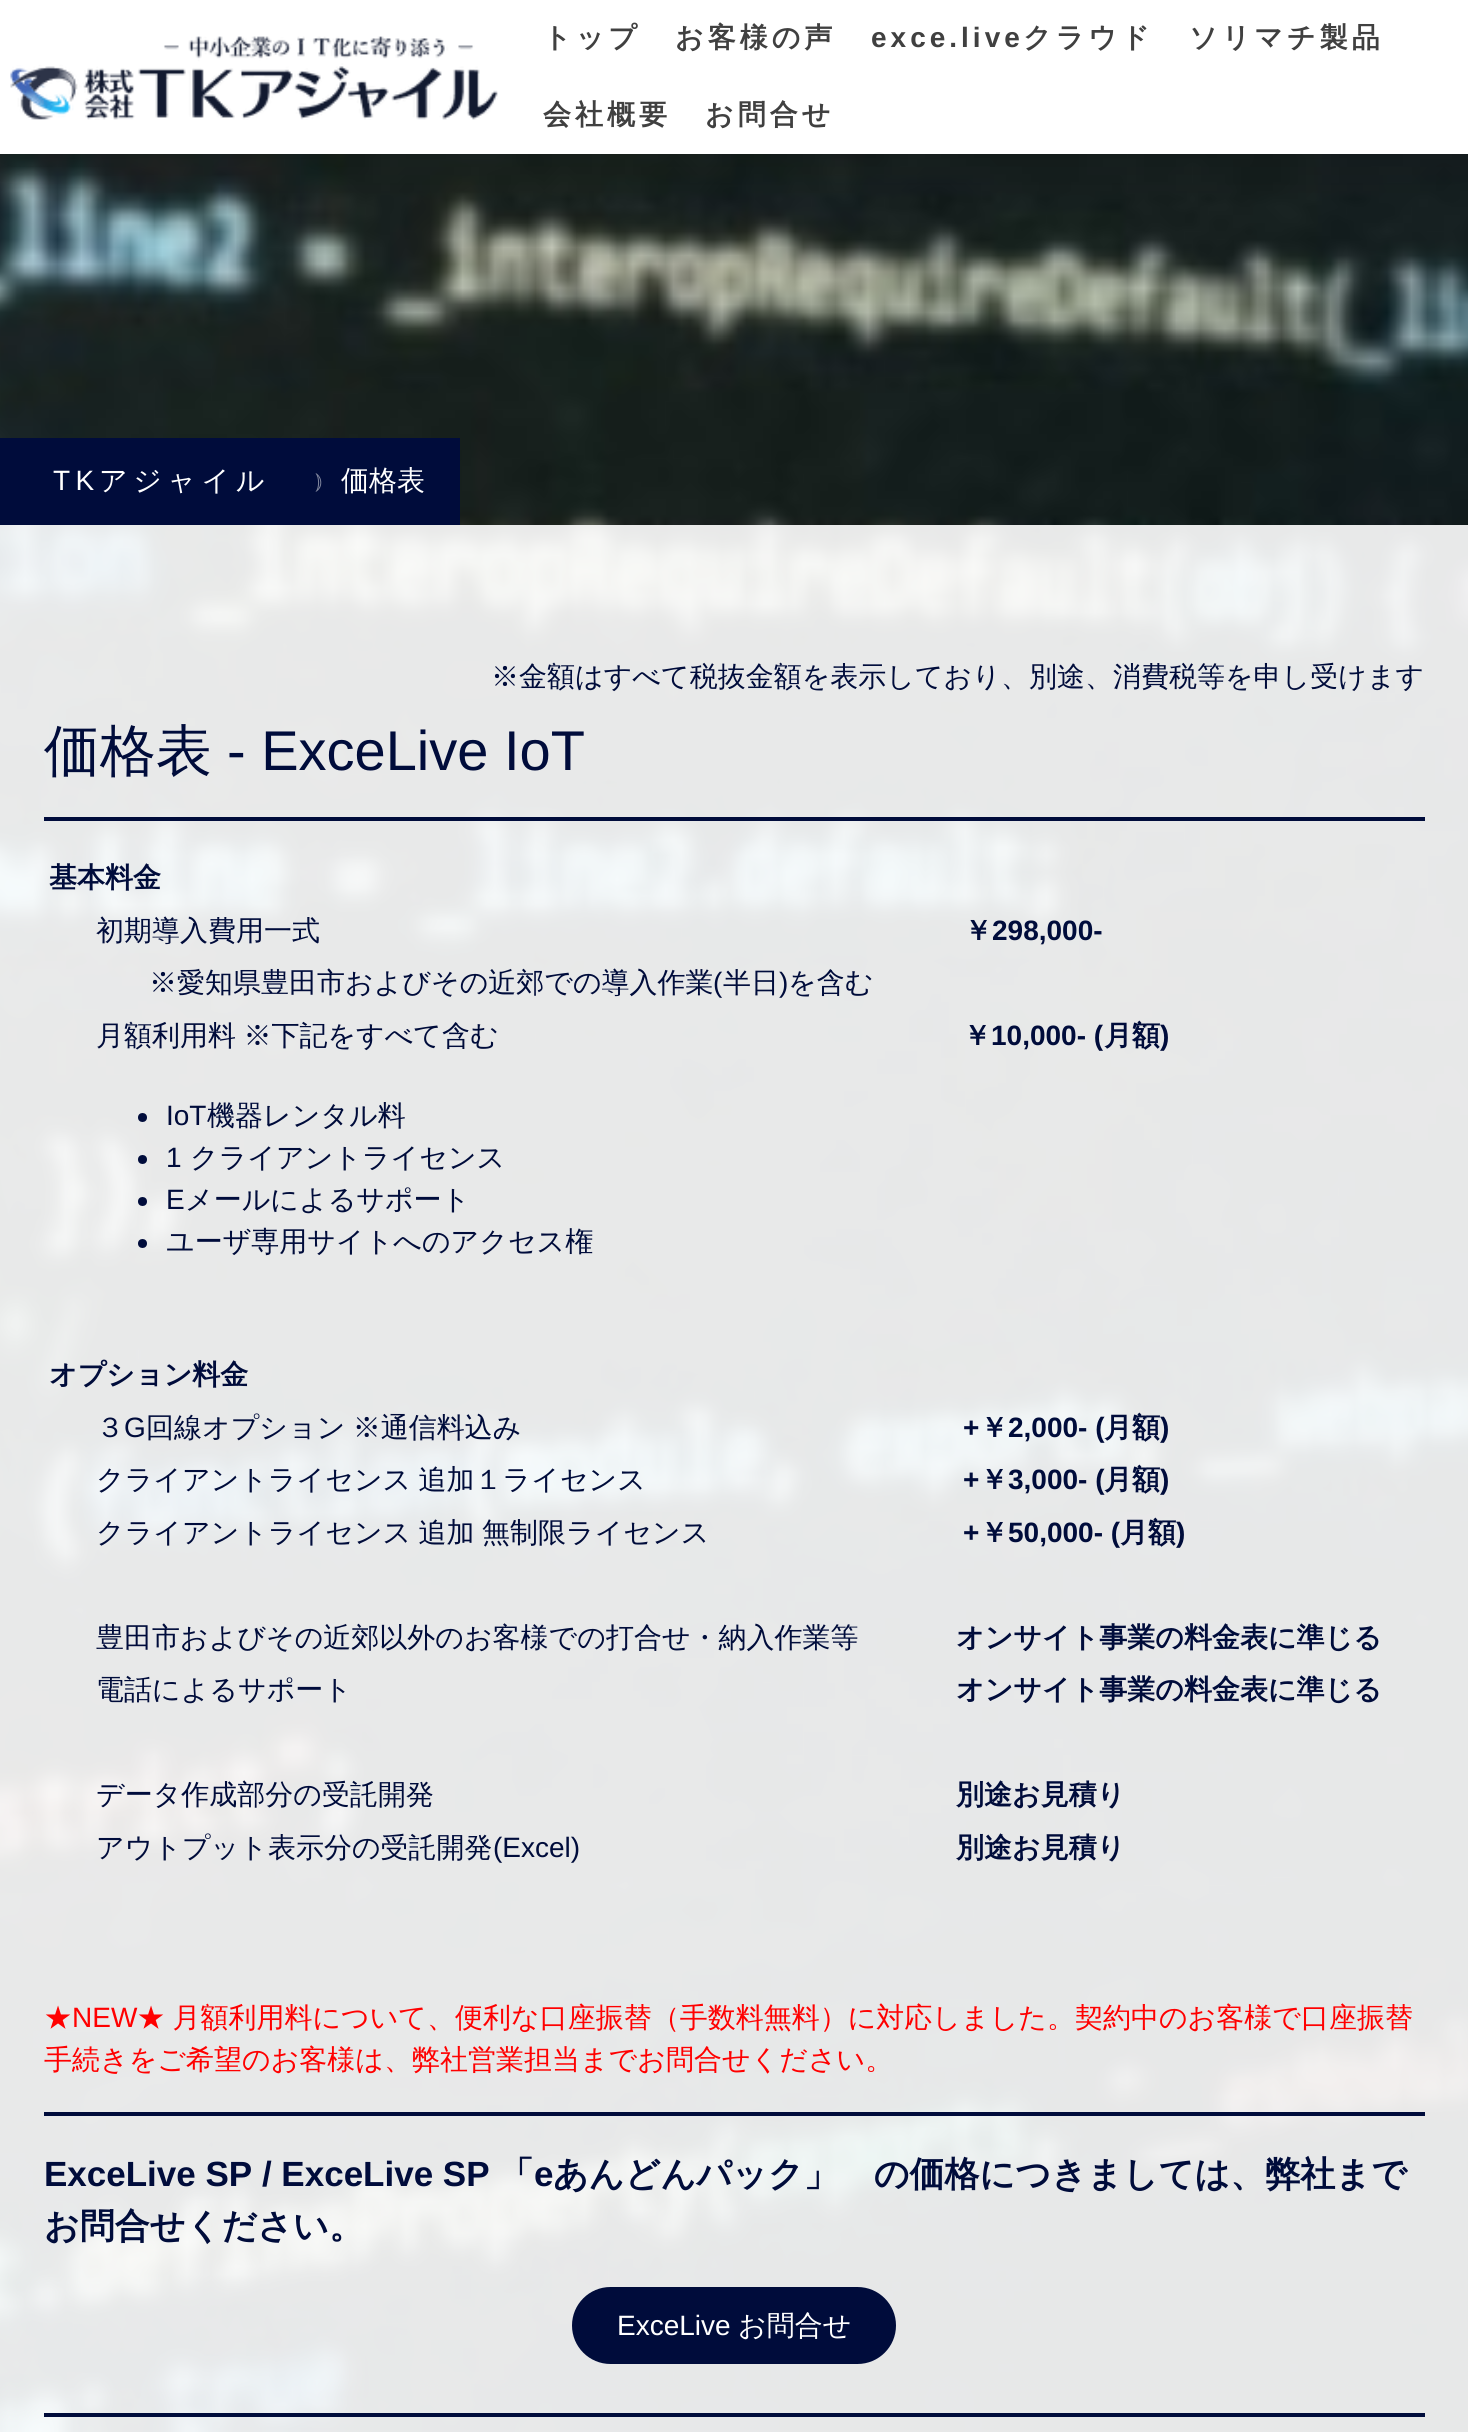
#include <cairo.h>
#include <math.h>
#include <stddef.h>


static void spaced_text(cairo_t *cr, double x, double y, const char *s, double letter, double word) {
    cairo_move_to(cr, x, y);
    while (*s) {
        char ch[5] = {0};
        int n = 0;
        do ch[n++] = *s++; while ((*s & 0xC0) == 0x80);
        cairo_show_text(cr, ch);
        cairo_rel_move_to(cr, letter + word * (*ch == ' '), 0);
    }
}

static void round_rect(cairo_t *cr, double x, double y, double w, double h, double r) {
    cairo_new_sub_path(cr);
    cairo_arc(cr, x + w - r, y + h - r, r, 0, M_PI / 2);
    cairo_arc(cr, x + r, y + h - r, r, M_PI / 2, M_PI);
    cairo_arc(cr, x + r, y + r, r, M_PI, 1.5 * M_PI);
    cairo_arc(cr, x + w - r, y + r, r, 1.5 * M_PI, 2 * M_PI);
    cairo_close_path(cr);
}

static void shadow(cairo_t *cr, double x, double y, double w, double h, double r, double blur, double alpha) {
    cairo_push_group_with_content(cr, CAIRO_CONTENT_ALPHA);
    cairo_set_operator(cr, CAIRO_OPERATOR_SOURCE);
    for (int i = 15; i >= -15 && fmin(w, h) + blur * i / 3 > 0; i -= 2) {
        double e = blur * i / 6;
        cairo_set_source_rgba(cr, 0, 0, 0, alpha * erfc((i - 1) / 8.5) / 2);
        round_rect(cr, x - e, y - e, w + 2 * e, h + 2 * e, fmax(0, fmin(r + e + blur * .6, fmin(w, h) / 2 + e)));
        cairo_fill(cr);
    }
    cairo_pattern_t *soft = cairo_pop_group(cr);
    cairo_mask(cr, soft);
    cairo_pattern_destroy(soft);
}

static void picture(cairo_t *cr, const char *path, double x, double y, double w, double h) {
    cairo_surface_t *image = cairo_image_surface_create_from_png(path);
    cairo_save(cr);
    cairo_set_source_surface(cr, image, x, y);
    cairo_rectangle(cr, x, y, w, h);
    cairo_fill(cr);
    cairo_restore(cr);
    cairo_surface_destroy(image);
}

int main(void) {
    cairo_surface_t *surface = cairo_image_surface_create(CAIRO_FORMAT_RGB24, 1468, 2432);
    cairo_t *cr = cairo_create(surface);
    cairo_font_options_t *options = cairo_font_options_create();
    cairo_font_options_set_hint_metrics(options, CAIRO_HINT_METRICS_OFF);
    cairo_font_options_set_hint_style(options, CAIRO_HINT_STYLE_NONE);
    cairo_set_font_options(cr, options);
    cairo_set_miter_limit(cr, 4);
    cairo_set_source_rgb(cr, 1, 1, 1);
    cairo_paint(cr);
    picture(cr, "img2.png", 0, 154, 1468, 2278);
    cairo_set_source_rgb(cr, 0, 0, 0);
    shadow(cr, 0, 0, 1468, 154, 0, 26, 0.2);
    cairo_set_source_rgb(cr, 1, 1, 1);
    cairo_rectangle(cr, 0, 0, 1468, 154);
    cairo_fill(cr);
    picture(cr, "img1.png", 10, 36, 488, 84);
    cairo_select_font_face(cr, "WenQuanYi Zen Hei", CAIRO_FONT_SLANT_NORMAL, CAIRO_FONT_WEIGHT_BOLD);
    cairo_set_font_size(cr, 28);
    cairo_set_source_rgb(cr, 0.251, 0.251, 0.251);
    spaced_text(cr, 543, 47, "トップ", 4, 0);
    spaced_text(cr, 675, 47, "お客様の声", 4, 0);
    cairo_select_font_face(cr, "Liberation Sans", CAIRO_FONT_SLANT_NORMAL, CAIRO_FONT_WEIGHT_BOLD);
    spaced_text(cr, 871, 47, "exce.live", 4, 0);
    cairo_select_font_face(cr, "WenQuanYi Zen Hei", CAIRO_FONT_SLANT_NORMAL, CAIRO_FONT_WEIGHT_BOLD);
    spaced_text(cr, 1023, 47, "クラウド", 4, 0);
    spaced_text(cr, 1189, 47, "ソリマチ製品", 4, 0);
    spaced_text(cr, 543, 124, "会社概要", 4, 0);
    spaced_text(cr, 705, 124, "お問合せ", 4, 0);
    cairo_set_source_rgba(cr, 1, 1, 1, 0.9);
    cairo_rectangle(cr, 0, 525, 1468, 1907);
    cairo_fill(cr);
    cairo_set_source_rgb(cr, 0, 0.047, 0.231);
    cairo_rectangle(cr, 0, 438, 460, 87);
    cairo_fill(cr);
    cairo_select_font_face(cr, "Liberation Sans", CAIRO_FONT_SLANT_NORMAL, CAIRO_FONT_WEIGHT_NORMAL);
    cairo_set_source_rgb(cr, 1, 1, 1);
    spaced_text(cr, 53, 490, "TK", 5.5, 0);
    cairo_select_font_face(cr, "WenQuanYi Zen Hei Medium", CAIRO_FONT_SLANT_NORMAL, CAIRO_FONT_WEIGHT_NORMAL);
    spaced_text(cr, 99, 490, "アジャイル", 5.5, 0);
    cairo_select_font_face(cr, "FreeSerif", CAIRO_FONT_SLANT_NORMAL, CAIRO_FONT_WEIGHT_NORMAL);
    cairo_set_font_size(cr, 22);
    cairo_set_source_rgb(cr, 0.502, 0.525, 0.616);
    cairo_move_to(cr, 315, 488);
    cairo_show_text(cr, "⦆");
    cairo_select_font_face(cr, "WenQuanYi Zen Hei Medium", CAIRO_FONT_SLANT_NORMAL, CAIRO_FONT_WEIGHT_NORMAL);
    cairo_set_font_size(cr, 28);
    cairo_set_source_rgb(cr, 1, 1, 1);
    cairo_move_to(cr, 341, 490);
    cairo_show_text(cr, "価格表");
    cairo_set_source_rgb(cr, 0, 0.047, 0.231);
    cairo_move_to(cr, 491, 686);
    cairo_show_text(cr, "※金額はすべて税抜金額を表示しており、別途、消費税等を申し受けます");
    cairo_set_font_size(cr, 56);
    cairo_move_to(cr, 44, 770);
    cairo_show_text(cr, "価格表");
    cairo_select_font_face(cr, "Liberation Sans", CAIRO_FONT_SLANT_NORMAL, CAIRO_FONT_WEIGHT_NORMAL);
    cairo_move_to(cr, 227, 770);
    cairo_show_text(cr, "- ExceLive IoT");
    cairo_rectangle(cr, 44, 817, 1381, 4);
    cairo_fill(cr);
    cairo_select_font_face(cr, "WenQuanYi Zen Hei", CAIRO_FONT_SLANT_NORMAL, CAIRO_FONT_WEIGHT_BOLD);
    cairo_set_font_size(cr, 28);
    cairo_move_to(cr, 49, 887);
    cairo_show_text(cr, "基本料金");
    cairo_select_font_face(cr, "WenQuanYi Zen Hei Medium", CAIRO_FONT_SLANT_NORMAL, CAIRO_FONT_WEIGHT_NORMAL);
    cairo_move_to(cr, 96, 940);
    cairo_show_text(cr, "初期導入費用一式");
    cairo_select_font_face(cr, "WenQuanYi Zen Hei", CAIRO_FONT_SLANT_NORMAL, CAIRO_FONT_WEIGHT_BOLD);
    cairo_move_to(cr, 964, 940);
    cairo_show_text(cr, "￥");
    cairo_select_font_face(cr, "Liberation Sans", CAIRO_FONT_SLANT_NORMAL, CAIRO_FONT_WEIGHT_BOLD);
    cairo_move_to(cr, 992, 940);
    cairo_show_text(cr, "298,000-");
    cairo_select_font_face(cr, "WenQuanYi Zen Hei Medium", CAIRO_FONT_SLANT_NORMAL, CAIRO_FONT_WEIGHT_NORMAL);
    cairo_move_to(cr, 149, 992);
    cairo_show_text(cr, "※愛知県豊田市およびその近郊での導入作業");
    cairo_select_font_face(cr, "Liberation Sans", CAIRO_FONT_SLANT_NORMAL, CAIRO_FONT_WEIGHT_NORMAL);
    cairo_move_to(cr, 713, 992);
    cairo_show_text(cr, "(");
    cairo_select_font_face(cr, "WenQuanYi Zen Hei Medium", CAIRO_FONT_SLANT_NORMAL, CAIRO_FONT_WEIGHT_NORMAL);
    cairo_move_to(cr, 723, 992);
    cairo_show_text(cr, "半日");
    cairo_select_font_face(cr, "Liberation Sans", CAIRO_FONT_SLANT_NORMAL, CAIRO_FONT_WEIGHT_NORMAL);
    cairo_move_to(cr, 779, 992);
    cairo_show_text(cr, ")");
    cairo_select_font_face(cr, "WenQuanYi Zen Hei Medium", CAIRO_FONT_SLANT_NORMAL, CAIRO_FONT_WEIGHT_NORMAL);
    cairo_move_to(cr, 788, 992);
    cairo_show_text(cr, "を含む");
    spaced_text(cr, 96, 1045, "月額利用料 ※下記をすべて含む", 0, -1);
    cairo_select_font_face(cr, "WenQuanYi Zen Hei", CAIRO_FONT_SLANT_NORMAL, CAIRO_FONT_WEIGHT_BOLD);
    cairo_move_to(cr, 963, 1045);
    cairo_show_text(cr, "￥");
    cairo_select_font_face(cr, "Liberation Sans", CAIRO_FONT_SLANT_NORMAL, CAIRO_FONT_WEIGHT_BOLD);
    cairo_move_to(cr, 991, 1045);
    cairo_show_text(cr, "10,000- (");
    cairo_select_font_face(cr, "WenQuanYi Zen Hei", CAIRO_FONT_SLANT_NORMAL, CAIRO_FONT_WEIGHT_BOLD);
    cairo_move_to(cr, 1104, 1045);
    cairo_show_text(cr, "月額");
    cairo_select_font_face(cr, "Liberation Sans", CAIRO_FONT_SLANT_NORMAL, CAIRO_FONT_WEIGHT_BOLD);
    cairo_move_to(cr, 1160, 1045);
    cairo_show_text(cr, ")");
    cairo_new_path(cr);
    cairo_arc(cr, 142.5, 1117.5, 4.5, 0, 2 * M_PI);
    cairo_fill(cr);
    cairo_select_font_face(cr, "Liberation Sans", CAIRO_FONT_SLANT_NORMAL, CAIRO_FONT_WEIGHT_NORMAL);
    cairo_move_to(cr, 166, 1125);
    cairo_show_text(cr, "IoT");
    cairo_select_font_face(cr, "WenQuanYi Zen Hei Medium", CAIRO_FONT_SLANT_NORMAL, CAIRO_FONT_WEIGHT_NORMAL);
    cairo_move_to(cr, 207, 1125);
    cairo_show_text(cr, "機器レンタル料");
    cairo_new_path(cr);
    cairo_arc(cr, 142.5, 1159.5, 4.5, 0, 2 * M_PI);
    cairo_fill(cr);
    cairo_select_font_face(cr, "Liberation Sans", CAIRO_FONT_SLANT_NORMAL, CAIRO_FONT_WEIGHT_NORMAL);
    cairo_move_to(cr, 166, 1167);
    cairo_show_text(cr, "1");
    cairo_select_font_face(cr, "WenQuanYi Zen Hei Medium", CAIRO_FONT_SLANT_NORMAL, CAIRO_FONT_WEIGHT_NORMAL);
    cairo_move_to(cr, 190, 1167);
    cairo_show_text(cr, "クライアントライセンス");
    cairo_new_path(cr);
    cairo_arc(cr, 142.5, 1201.5, 4.5, 0, 2 * M_PI);
    cairo_fill(cr);
    cairo_select_font_face(cr, "Liberation Sans", CAIRO_FONT_SLANT_NORMAL, CAIRO_FONT_WEIGHT_NORMAL);
    cairo_move_to(cr, 166, 1209);
    cairo_show_text(cr, "E");
    cairo_select_font_face(cr, "WenQuanYi Zen Hei Medium", CAIRO_FONT_SLANT_NORMAL, CAIRO_FONT_WEIGHT_NORMAL);
    cairo_move_to(cr, 185, 1209);
    cairo_show_text(cr, "メールによるサポート");
    cairo_new_path(cr);
    cairo_arc(cr, 142.5, 1243.5, 4.5, 0, 2 * M_PI);
    cairo_fill(cr);
    cairo_move_to(cr, 166, 1251);
    cairo_show_text(cr, "ユーザ専用サイトへのアクセス権");
    cairo_select_font_face(cr, "WenQuanYi Zen Hei", CAIRO_FONT_SLANT_NORMAL, CAIRO_FONT_WEIGHT_BOLD);
    cairo_move_to(cr, 49, 1384);
    cairo_show_text(cr, "オプション料金");
    cairo_select_font_face(cr, "WenQuanYi Zen Hei Medium", CAIRO_FONT_SLANT_NORMAL, CAIRO_FONT_WEIGHT_NORMAL);
    cairo_move_to(cr, 96, 1437);
    cairo_show_text(cr, "３");
    cairo_select_font_face(cr, "Liberation Sans", CAIRO_FONT_SLANT_NORMAL, CAIRO_FONT_WEIGHT_NORMAL);
    cairo_move_to(cr, 124, 1437);
    cairo_show_text(cr, "G");
    cairo_select_font_face(cr, "WenQuanYi Zen Hei Medium", CAIRO_FONT_SLANT_NORMAL, CAIRO_FONT_WEIGHT_NORMAL);
    spaced_text(cr, 146, 1437, "回線オプション ※通信料込み", 0, -1);
    cairo_select_font_face(cr, "Liberation Sans", CAIRO_FONT_SLANT_NORMAL, CAIRO_FONT_WEIGHT_BOLD);
    cairo_move_to(cr, 963, 1437);
    cairo_show_text(cr, "+");
    cairo_select_font_face(cr, "WenQuanYi Zen Hei", CAIRO_FONT_SLANT_NORMAL, CAIRO_FONT_WEIGHT_BOLD);
    cairo_move_to(cr, 980, 1437);
    cairo_show_text(cr, "￥");
    cairo_select_font_face(cr, "Liberation Sans", CAIRO_FONT_SLANT_NORMAL, CAIRO_FONT_WEIGHT_BOLD);
    cairo_move_to(cr, 1008, 1437);
    cairo_show_text(cr, "2,000- (");
    cairo_select_font_face(cr, "WenQuanYi Zen Hei", CAIRO_FONT_SLANT_NORMAL, CAIRO_FONT_WEIGHT_BOLD);
    cairo_move_to(cr, 1104, 1437);
    cairo_show_text(cr, "月額");
    cairo_select_font_face(cr, "Liberation Sans", CAIRO_FONT_SLANT_NORMAL, CAIRO_FONT_WEIGHT_BOLD);
    cairo_move_to(cr, 1160, 1437);
    cairo_show_text(cr, ")");
    cairo_select_font_face(cr, "WenQuanYi Zen Hei Medium", CAIRO_FONT_SLANT_NORMAL, CAIRO_FONT_WEIGHT_NORMAL);
    spaced_text(cr, 96, 1489, "クライアントライセンス 追加１ライセンス", 0, -1);
    cairo_select_font_face(cr, "Liberation Sans", CAIRO_FONT_SLANT_NORMAL, CAIRO_FONT_WEIGHT_BOLD);
    cairo_move_to(cr, 963, 1489);
    cairo_show_text(cr, "+");
    cairo_select_font_face(cr, "WenQuanYi Zen Hei", CAIRO_FONT_SLANT_NORMAL, CAIRO_FONT_WEIGHT_BOLD);
    cairo_move_to(cr, 980, 1489);
    cairo_show_text(cr, "￥");
    cairo_select_font_face(cr, "Liberation Sans", CAIRO_FONT_SLANT_NORMAL, CAIRO_FONT_WEIGHT_BOLD);
    cairo_move_to(cr, 1008, 1489);
    cairo_show_text(cr, "3,000- (");
    cairo_select_font_face(cr, "WenQuanYi Zen Hei", CAIRO_FONT_SLANT_NORMAL, CAIRO_FONT_WEIGHT_BOLD);
    cairo_move_to(cr, 1104, 1489);
    cairo_show_text(cr, "月額");
    cairo_select_font_face(cr, "Liberation Sans", CAIRO_FONT_SLANT_NORMAL, CAIRO_FONT_WEIGHT_BOLD);
    cairo_move_to(cr, 1160, 1489);
    cairo_show_text(cr, ")");
    cairo_select_font_face(cr, "WenQuanYi Zen Hei Medium", CAIRO_FONT_SLANT_NORMAL, CAIRO_FONT_WEIGHT_NORMAL);
    spaced_text(cr, 96, 1542, "クライアントライセンス 追加 無制限ライセンス", 0, -1);
    cairo_select_font_face(cr, "Liberation Sans", CAIRO_FONT_SLANT_NORMAL, CAIRO_FONT_WEIGHT_BOLD);
    cairo_move_to(cr, 963, 1542);
    cairo_show_text(cr, "+");
    cairo_select_font_face(cr, "WenQuanYi Zen Hei", CAIRO_FONT_SLANT_NORMAL, CAIRO_FONT_WEIGHT_BOLD);
    cairo_move_to(cr, 980, 1542);
    cairo_show_text(cr, "￥");
    cairo_select_font_face(cr, "Liberation Sans", CAIRO_FONT_SLANT_NORMAL, CAIRO_FONT_WEIGHT_BOLD);
    cairo_move_to(cr, 1008, 1542);
    cairo_show_text(cr, "50,000- (");
    cairo_select_font_face(cr, "WenQuanYi Zen Hei", CAIRO_FONT_SLANT_NORMAL, CAIRO_FONT_WEIGHT_BOLD);
    cairo_move_to(cr, 1120, 1542);
    cairo_show_text(cr, "月額");
    cairo_select_font_face(cr, "Liberation Sans", CAIRO_FONT_SLANT_NORMAL, CAIRO_FONT_WEIGHT_BOLD);
    cairo_move_to(cr, 1176, 1542);
    cairo_show_text(cr, ")");
    cairo_select_font_face(cr, "WenQuanYi Zen Hei Medium", CAIRO_FONT_SLANT_NORMAL, CAIRO_FONT_WEIGHT_NORMAL);
    cairo_move_to(cr, 96, 1647);
    cairo_show_text(cr, "豊田市およびその近郊以外のお客様での打合せ・納入作業等");
    cairo_select_font_face(cr, "WenQuanYi Zen Hei", CAIRO_FONT_SLANT_NORMAL, CAIRO_FONT_WEIGHT_BOLD);
    cairo_move_to(cr, 956, 1647);
    cairo_show_text(cr, "オンサイト事業の料金表に準じる");
    cairo_select_font_face(cr, "WenQuanYi Zen Hei Medium", CAIRO_FONT_SLANT_NORMAL, CAIRO_FONT_WEIGHT_NORMAL);
    cairo_move_to(cr, 96, 1699);
    cairo_show_text(cr, "電話によるサポート");
    cairo_select_font_face(cr, "WenQuanYi Zen Hei", CAIRO_FONT_SLANT_NORMAL, CAIRO_FONT_WEIGHT_BOLD);
    cairo_move_to(cr, 956, 1699);
    cairo_show_text(cr, "オンサイト事業の料金表に準じる");
    cairo_select_font_face(cr, "WenQuanYi Zen Hei Medium", CAIRO_FONT_SLANT_NORMAL, CAIRO_FONT_WEIGHT_NORMAL);
    cairo_move_to(cr, 96, 1804);
    cairo_show_text(cr, "データ作成部分の受託開発");
    cairo_select_font_face(cr, "WenQuanYi Zen Hei", CAIRO_FONT_SLANT_NORMAL, CAIRO_FONT_WEIGHT_BOLD);
    cairo_move_to(cr, 956, 1804);
    cairo_show_text(cr, "別途お見積り");
    cairo_select_font_face(cr, "WenQuanYi Zen Hei Medium", CAIRO_FONT_SLANT_NORMAL, CAIRO_FONT_WEIGHT_NORMAL);
    cairo_move_to(cr, 96, 1857);
    cairo_show_text(cr, "アウトプット表示分の受託開発");
    cairo_select_font_face(cr, "Liberation Sans", CAIRO_FONT_SLANT_NORMAL, CAIRO_FONT_WEIGHT_NORMAL);
    cairo_move_to(cr, 493, 1857);
    cairo_show_text(cr, "(Excel)");
    cairo_select_font_face(cr, "WenQuanYi Zen Hei", CAIRO_FONT_SLANT_NORMAL, CAIRO_FONT_WEIGHT_BOLD);
    cairo_move_to(cr, 956, 1857);
    cairo_show_text(cr, "別途お見積り");
    cairo_select_font_face(cr, "WenQuanYi Zen Hei Medium", CAIRO_FONT_SLANT_NORMAL, CAIRO_FONT_WEIGHT_NORMAL);
    cairo_set_source_rgb(cr, 1, 0, 0);
    cairo_move_to(cr, 44, 2027);
    cairo_show_text(cr, "★");
    cairo_select_font_face(cr, "Liberation Sans", CAIRO_FONT_SLANT_NORMAL, CAIRO_FONT_WEIGHT_NORMAL);
    cairo_move_to(cr, 72, 2027);
    cairo_show_text(cr, "NEW");
    cairo_select_font_face(cr, "WenQuanYi Zen Hei Medium", CAIRO_FONT_SLANT_NORMAL, CAIRO_FONT_WEIGHT_NORMAL);
    spaced_text(cr, 137, 2027, "★ 月額利用料について、便利な口座振替（手数料無料）に対応しました。契約中のお客様で口座振替", 0, -1);
    cairo_move_to(cr, 44, 2069);
    cairo_show_text(cr, "手続きをご希望のお客様は、弊社営業担当までお問合せください。");
    cairo_set_source_rgb(cr, 0, 0.047, 0.231);
    cairo_rectangle(cr, 44, 2112, 1381, 4);
    cairo_fill(cr);
    cairo_select_font_face(cr, "Liberation Sans", CAIRO_FONT_SLANT_NORMAL, CAIRO_FONT_WEIGHT_BOLD);
    cairo_set_font_size(cr, 35);
    cairo_move_to(cr, 44, 2186);
    cairo_show_text(cr, "ExceLive SP / ExceLive SP");
    cairo_select_font_face(cr, "WenQuanYi Zen Hei", CAIRO_FONT_SLANT_NORMAL, CAIRO_FONT_WEIGHT_BOLD);
    cairo_move_to(cr, 499, 2186);
    cairo_show_text(cr, "「");
    cairo_select_font_face(cr, "Liberation Sans", CAIRO_FONT_SLANT_NORMAL, CAIRO_FONT_WEIGHT_BOLD);
    cairo_move_to(cr, 534, 2186);
    cairo_show_text(cr, "e");
    cairo_select_font_face(cr, "WenQuanYi Zen Hei", CAIRO_FONT_SLANT_NORMAL, CAIRO_FONT_WEIGHT_BOLD);
    cairo_move_to(cr, 553, 2186);
    cairo_show_text(cr, "あんどんパック」　の価格につきましては、弊社まで");
    cairo_move_to(cr, 44, 2238);
    cairo_show_text(cr, "お問合せください。");
    round_rect(cr, 572, 2287, 324, 77, 38.5);
    cairo_fill(cr);
    cairo_select_font_face(cr, "Liberation Sans", CAIRO_FONT_SLANT_NORMAL, CAIRO_FONT_WEIGHT_NORMAL);
    cairo_set_font_size(cr, 28);
    cairo_set_source_rgb(cr, 1, 1, 1);
    cairo_move_to(cr, 617, 2335);
    cairo_show_text(cr, "ExceLive");
    cairo_select_font_face(cr, "WenQuanYi Zen Hei Medium", CAIRO_FONT_SLANT_NORMAL, CAIRO_FONT_WEIGHT_NORMAL);
    cairo_move_to(cr, 738, 2335);
    cairo_show_text(cr, "お問合せ");
    cairo_set_source_rgb(cr, 0, 0.047, 0.231);
    cairo_rectangle(cr, 44, 2413, 1381, 4);
    cairo_fill(cr);
    cairo_surface_write_to_png(surface, "page.png");
    cairo_font_options_destroy(options);
    cairo_destroy(cr);
    cairo_surface_destroy(surface);
    return 0;
}
